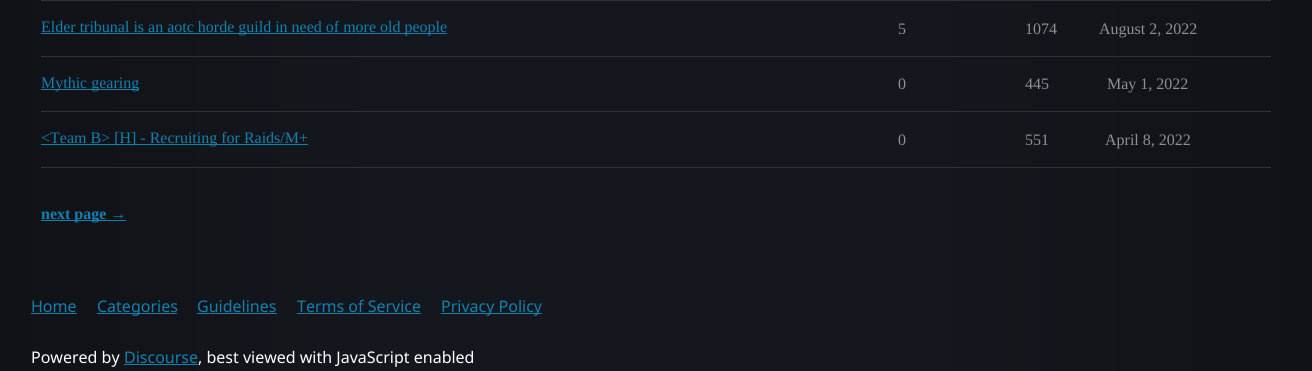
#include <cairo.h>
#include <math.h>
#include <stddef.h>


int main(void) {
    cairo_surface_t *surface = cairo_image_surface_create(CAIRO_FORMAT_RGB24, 1312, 371);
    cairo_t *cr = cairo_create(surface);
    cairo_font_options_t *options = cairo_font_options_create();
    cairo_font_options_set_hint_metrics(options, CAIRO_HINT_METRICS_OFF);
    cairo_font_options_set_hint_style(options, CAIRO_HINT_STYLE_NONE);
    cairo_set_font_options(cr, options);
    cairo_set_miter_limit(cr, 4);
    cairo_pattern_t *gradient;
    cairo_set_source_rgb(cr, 1, 1, 1);
    cairo_paint(cr);
    gradient = cairo_pattern_create_linear(0, -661, 1312, -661);
    cairo_pattern_add_color_stop_rgba(gradient, 0, 0.067, 0.071, 0.09, 1);
    cairo_pattern_add_color_stop_rgba(gradient, 0.3, 0.082, 0.09, 0.118, 1);
    cairo_pattern_add_color_stop_rgba(gradient, 0.7, 0.082, 0.09, 0.118, 1);
    cairo_pattern_add_color_stop_rgba(gradient, 1, 0.067, 0.071, 0.09, 1);
    cairo_set_source(cr, gradient);
    cairo_pattern_destroy(gradient);
    cairo_rectangle(cr, 0, 0, 1312, 371);
    cairo_fill(cr);
    cairo_set_source_rgb(cr, 0.192, 0.192, 0.192);
    cairo_rectangle(cr, 41, 0, 1230, 1);
    cairo_fill(cr);
    cairo_rectangle(cr, 41, 56, 1230, 1);
    cairo_fill(cr);
    cairo_set_source_rgb(cr, 0.059, 0.51, 0.686);
    cairo_rectangle(cr, 41, 33, 406, 1);
    cairo_fill(cr);
    cairo_select_font_face(cr, "Liberation Serif", CAIRO_FONT_SLANT_NORMAL, CAIRO_FONT_WEIGHT_NORMAL);
    cairo_set_font_size(cr, 16);
    cairo_move_to(cr, 41, 32);
    cairo_show_text(cr, "Elder tribunal is an aotc horde guild in need of more old people");
    cairo_set_source_rgb(cr, 0.565, 0.565, 0.565);
    cairo_move_to(cr, 898, 34);
    cairo_show_text(cr, "5");
    cairo_move_to(cr, 1025, 34);
    cairo_show_text(cr, "1074");
    cairo_move_to(cr, 1099, 34);
    cairo_show_text(cr, "August 2, 2022");
    cairo_set_source_rgb(cr, 0.192, 0.192, 0.192);
    cairo_rectangle(cr, 41, 111, 1230, 1);
    cairo_fill(cr);
    cairo_set_source_rgb(cr, 0.059, 0.51, 0.686);
    cairo_rectangle(cr, 41, 89, 98, 1);
    cairo_fill(cr);
    cairo_move_to(cr, 41, 88);
    cairo_show_text(cr, "Mythic gearing");
    cairo_set_source_rgb(cr, 0.565, 0.565, 0.565);
    cairo_move_to(cr, 898, 89);
    cairo_show_text(cr, "0");
    cairo_move_to(cr, 1025, 89);
    cairo_show_text(cr, "445");
    cairo_move_to(cr, 1107, 89);
    cairo_show_text(cr, "May 1, 2022");
    cairo_set_source_rgb(cr, 0.192, 0.192, 0.192);
    cairo_rectangle(cr, 41, 167, 1230, 1);
    cairo_fill(cr);
    cairo_set_source_rgb(cr, 0.059, 0.51, 0.686);
    cairo_rectangle(cr, 41, 144, 267, 1);
    cairo_fill(cr);
    cairo_move_to(cr, 41, 143);
    cairo_show_text(cr, "<Team B> [H] - Recruiting for Raids/M+");
    cairo_set_source_rgb(cr, 0.565, 0.565, 0.565);
    cairo_move_to(cr, 898, 145);
    cairo_show_text(cr, "0");
    cairo_move_to(cr, 1025, 145);
    cairo_show_text(cr, "551");
    cairo_move_to(cr, 1105, 145);
    cairo_show_text(cr, "April 8, 2022");
    cairo_set_source_rgb(cr, 0.059, 0.51, 0.686);
    cairo_rectangle(cr, 41, 220, 85, 1);
    cairo_fill(cr);
    cairo_select_font_face(cr, "Liberation Serif", CAIRO_FONT_SLANT_NORMAL, CAIRO_FONT_WEIGHT_BOLD);
    cairo_move_to(cr, 41, 219);
    cairo_show_text(cr, "next page →");
    cairo_select_font_face(cr, "Noto Sans", CAIRO_FONT_SLANT_NORMAL, CAIRO_FONT_WEIGHT_NORMAL);
    cairo_move_to(cr, 31, 312);
    cairo_show_text(cr, "Home");
    cairo_rectangle(cr, 31, 313, 46, 1);
    cairo_fill(cr);
    cairo_rectangle(cr, 97, 313, 80, 1);
    cairo_fill(cr);
    cairo_move_to(cr, 97, 312);
    cairo_show_text(cr, "Categories");
    cairo_move_to(cr, 197, 312);
    cairo_show_text(cr, "Guidelines");
    cairo_rectangle(cr, 197, 313, 80, 1);
    cairo_fill(cr);
    cairo_move_to(cr, 297, 312);
    cairo_show_text(cr, "Terms of Service");
    cairo_rectangle(cr, 297, 313, 124, 1);
    cairo_fill(cr);
    cairo_rectangle(cr, 441, 313, 101, 1);
    cairo_fill(cr);
    cairo_move_to(cr, 441, 312);
    cairo_show_text(cr, "Privacy Policy");
    cairo_set_source_rgb(cr, 1, 1, 1);
    cairo_move_to(cr, 31, 363);
    cairo_show_text(cr, "Powered by");
    cairo_set_source_rgb(cr, 0.059, 0.51, 0.686);
    cairo_move_to(cr, 124, 363);
    cairo_show_text(cr, "Discourse");
    cairo_rectangle(cr, 124, 364, 74, 1);
    cairo_fill(cr);
    cairo_set_source_rgb(cr, 1, 1, 1);
    cairo_move_to(cr, 198, 363);
    cairo_show_text(cr, ", best viewed with JavaScript enabled");
    cairo_surface_write_to_png(surface, "page.png");
    cairo_font_options_destroy(options);
    cairo_destroy(cr);
    cairo_surface_destroy(surface);
    return 0;
}
